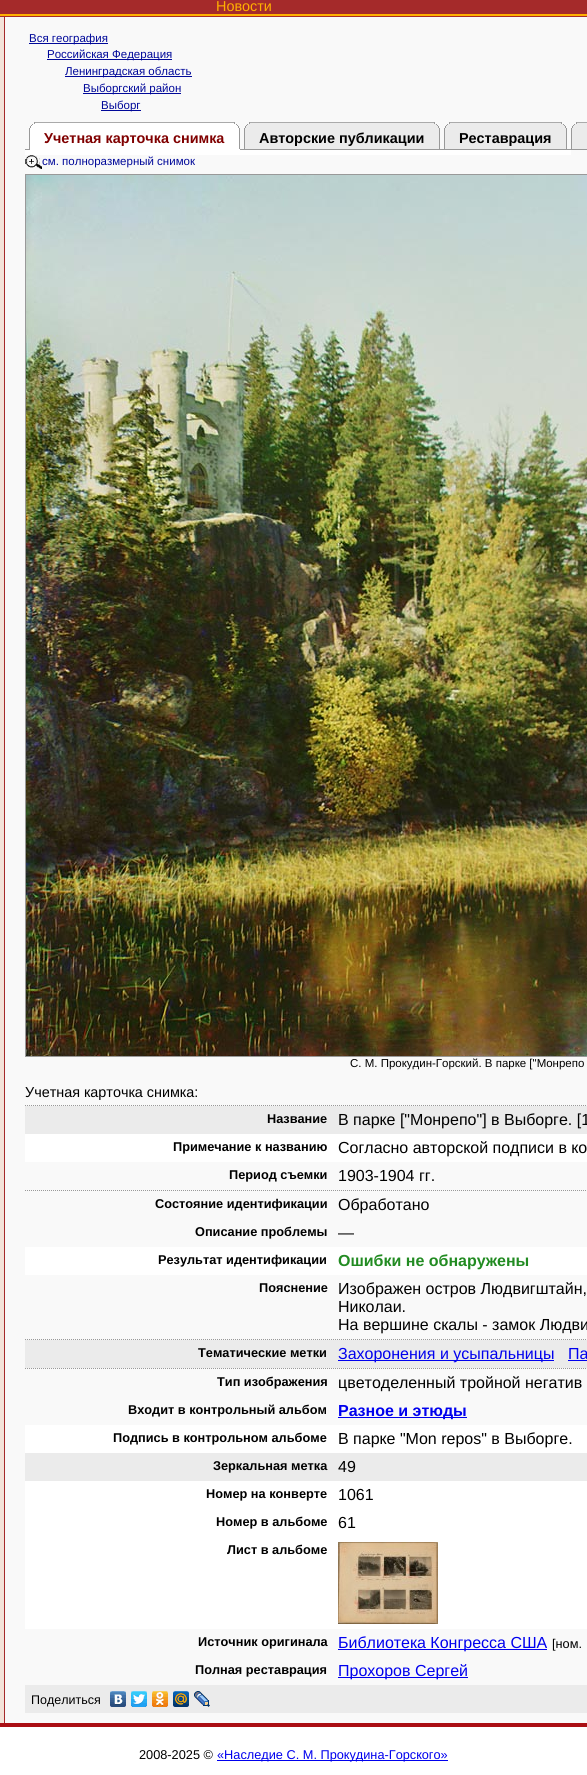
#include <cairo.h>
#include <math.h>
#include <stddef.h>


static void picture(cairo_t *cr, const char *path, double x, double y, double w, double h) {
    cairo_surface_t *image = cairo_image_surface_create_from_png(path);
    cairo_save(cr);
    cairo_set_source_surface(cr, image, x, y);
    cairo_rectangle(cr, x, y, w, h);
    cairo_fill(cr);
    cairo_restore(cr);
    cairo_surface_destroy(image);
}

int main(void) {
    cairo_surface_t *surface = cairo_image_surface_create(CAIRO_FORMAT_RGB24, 587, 1775);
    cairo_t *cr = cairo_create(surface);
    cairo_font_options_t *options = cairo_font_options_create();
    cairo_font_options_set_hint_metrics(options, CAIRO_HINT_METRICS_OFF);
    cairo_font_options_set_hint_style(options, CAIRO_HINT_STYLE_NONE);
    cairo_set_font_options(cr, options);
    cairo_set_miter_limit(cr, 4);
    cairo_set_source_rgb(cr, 1, 1, 1);
    cairo_paint(cr);
    cairo_set_source_rgb(cr, 0.647, 0.165, 0.165);
    cairo_rectangle(cr, 0, 0, 587, 17);
    cairo_fill(cr);
    cairo_select_font_face(cr, "Liberation Sans", CAIRO_FONT_SLANT_NORMAL, CAIRO_FONT_WEIGHT_NORMAL);
    cairo_set_font_size(cr, 14.4);
    cairo_set_source_rgb(cr, 1, 0.694, 0);
    cairo_move_to(cr, 216, 11);
    cairo_show_text(cr, "Новости");
    cairo_rectangle(cr, 0, 14, 100, 2);
    cairo_fill(cr);
    cairo_rectangle(cr, 100, 14, 487, 2);
    cairo_fill(cr);
    cairo_set_source_rgb(cr, 0.957, 0.89, 0.851);
    cairo_rectangle(cr, 0, 17, 4, 1706);
    cairo_fill(cr);
    cairo_set_source_rgb(cr, 0.647, 0.165, 0.165);
    cairo_rectangle(cr, 4, 17, 1, 1706);
    cairo_fill(cr);
    cairo_set_source_rgb(cr, 0.976, 0.976, 0.976);
    cairo_rectangle(cr, 5, 17, 582, 1706);
    cairo_fill(cr);
    cairo_set_source_rgb(cr, 0, 0.035, 0.6);
    cairo_rectangle(cr, 29, 43, 79, 1);
    cairo_fill(cr);
    cairo_set_font_size(cr, 11.5);
    cairo_move_to(cr, 29, 42);
    cairo_show_text(cr, "Вся география");
    cairo_rectangle(cr, 47, 59, 125, 1);
    cairo_fill(cr);
    cairo_move_to(cr, 47, 58);
    cairo_show_text(cr, "Российская Федерация");
    cairo_rectangle(cr, 65, 76, 127, 1);
    cairo_fill(cr);
    cairo_move_to(cr, 65, 75);
    cairo_show_text(cr, "Ленинградская область");
    cairo_rectangle(cr, 83, 93, 98, 1);
    cairo_fill(cr);
    cairo_move_to(cr, 83, 92);
    cairo_show_text(cr, "Выборгский район");
    cairo_rectangle(cr, 101, 110, 40, 1);
    cairo_fill(cr);
    cairo_move_to(cr, 101, 109);
    cairo_show_text(cr, "Выборг");
    cairo_set_source_rgb(cr, 1, 1, 1);
    cairo_rectangle(cr, 34, 123, 201, 1);
    cairo_fill(cr);
    cairo_set_source_rgb(cr, 0.667, 0.667, 0.667);
    cairo_rectangle(cr, 34, 122, 201, 1);
    cairo_fill(cr);
    cairo_set_source_rgb(cr, 0.6, 0.6, 0.6);
    cairo_rectangle(cr, 234, 122, 1, 2);
    cairo_fill(cr);
    cairo_rectangle(cr, 34, 122, 1, 2);
    cairo_fill(cr);
    cairo_set_source_rgb(cr, 1, 1, 1);
    cairo_rectangle(cr, 32, 124, 205, 1);
    cairo_fill(cr);
    cairo_set_source_rgb(cr, 0.6, 0.6, 0.6);
    cairo_rectangle(cr, 236, 124, 1, 1);
    cairo_fill(cr);
    cairo_rectangle(cr, 32, 124, 1, 1);
    cairo_fill(cr);
    cairo_set_source_rgb(cr, 1, 1, 1);
    cairo_rectangle(cr, 31, 125, 207, 1);
    cairo_fill(cr);
    cairo_set_source_rgb(cr, 0.6, 0.6, 0.6);
    cairo_rectangle(cr, 237, 125, 1, 1);
    cairo_fill(cr);
    cairo_rectangle(cr, 31, 125, 1, 1);
    cairo_fill(cr);
    cairo_set_source_rgb(cr, 1, 1, 1);
    cairo_rectangle(cr, 30, 126, 209, 2);
    cairo_fill(cr);
    cairo_set_source_rgb(cr, 0.6, 0.6, 0.6);
    cairo_rectangle(cr, 238, 126, 1, 2);
    cairo_fill(cr);
    cairo_rectangle(cr, 30, 126, 1, 2);
    cairo_fill(cr);
    cairo_set_source_rgb(cr, 1, 1, 1);
    cairo_rectangle(cr, 30, 128, 209, 21);
    cairo_fill(cr);
    cairo_set_source_rgb(cr, 0.6, 0.6, 0.6);
    cairo_rectangle(cr, 239, 128, 1, 22);
    cairo_fill(cr);
    cairo_set_source_rgb(cr, 1, 1, 1);
    cairo_rectangle(cr, 29, 149, 211, 1);
    cairo_fill(cr);
    cairo_set_source_rgb(cr, 0.6, 0.6, 0.6);
    cairo_rectangle(cr, 29, 128, 1, 22);
    cairo_fill(cr);
    cairo_select_font_face(cr, "Liberation Sans", CAIRO_FONT_SLANT_NORMAL, CAIRO_FONT_WEIGHT_BOLD);
    cairo_set_font_size(cr, 14.4);
    cairo_set_source_rgb(cr, 0.502, 0, 0);
    cairo_move_to(cr, 44, 143);
    cairo_show_text(cr, "Учетная карточка снимка");
    cairo_set_source_rgb(cr, 0.918, 0.918, 0.918);
    cairo_rectangle(cr, 249, 123, 186, 1);
    cairo_fill(cr);
    cairo_set_source_rgb(cr, 0.667, 0.667, 0.667);
    cairo_rectangle(cr, 249, 122, 186, 1);
    cairo_fill(cr);
    cairo_set_source_rgb(cr, 0.6, 0.6, 0.6);
    cairo_rectangle(cr, 434, 122, 1, 2);
    cairo_fill(cr);
    cairo_rectangle(cr, 249, 122, 1, 2);
    cairo_fill(cr);
    cairo_set_source_rgb(cr, 0.918, 0.918, 0.918);
    cairo_rectangle(cr, 247, 124, 190, 1);
    cairo_fill(cr);
    cairo_set_source_rgb(cr, 0.6, 0.6, 0.6);
    cairo_rectangle(cr, 436, 124, 1, 1);
    cairo_fill(cr);
    cairo_rectangle(cr, 247, 124, 1, 1);
    cairo_fill(cr);
    cairo_set_source_rgb(cr, 0.918, 0.918, 0.918);
    cairo_rectangle(cr, 246, 125, 192, 1);
    cairo_fill(cr);
    cairo_set_source_rgb(cr, 0.6, 0.6, 0.6);
    cairo_rectangle(cr, 437, 125, 1, 1);
    cairo_fill(cr);
    cairo_rectangle(cr, 246, 125, 1, 1);
    cairo_fill(cr);
    cairo_set_source_rgb(cr, 0.918, 0.918, 0.918);
    cairo_rectangle(cr, 245, 126, 194, 2);
    cairo_fill(cr);
    cairo_set_source_rgb(cr, 0.6, 0.6, 0.6);
    cairo_rectangle(cr, 438, 126, 1, 2);
    cairo_fill(cr);
    cairo_rectangle(cr, 245, 126, 1, 2);
    cairo_fill(cr);
    cairo_set_source_rgb(cr, 0.918, 0.918, 0.918);
    cairo_rectangle(cr, 245, 128, 194, 21);
    cairo_fill(cr);
    cairo_set_source_rgb(cr, 0.6, 0.6, 0.6);
    cairo_rectangle(cr, 439, 128, 1, 21);
    cairo_fill(cr);
    cairo_rectangle(cr, 244, 128, 1, 21);
    cairo_fill(cr);
    cairo_set_source_rgb(cr, 0, 0, 0);
    cairo_move_to(cr, 259, 143);
    cairo_show_text(cr, "Авторские публикации");
    cairo_set_source_rgb(cr, 0.918, 0.918, 0.918);
    cairo_rectangle(cr, 449, 123, 113, 1);
    cairo_fill(cr);
    cairo_set_source_rgb(cr, 0.667, 0.667, 0.667);
    cairo_rectangle(cr, 449, 122, 113, 1);
    cairo_fill(cr);
    cairo_set_source_rgb(cr, 0.6, 0.6, 0.6);
    cairo_rectangle(cr, 561, 122, 1, 2);
    cairo_fill(cr);
    cairo_rectangle(cr, 449, 122, 1, 2);
    cairo_fill(cr);
    cairo_set_source_rgb(cr, 0.918, 0.918, 0.918);
    cairo_rectangle(cr, 447, 124, 117, 1);
    cairo_fill(cr);
    cairo_set_source_rgb(cr, 0.6, 0.6, 0.6);
    cairo_rectangle(cr, 563, 124, 1, 1);
    cairo_fill(cr);
    cairo_rectangle(cr, 447, 124, 1, 1);
    cairo_fill(cr);
    cairo_set_source_rgb(cr, 0.918, 0.918, 0.918);
    cairo_rectangle(cr, 446, 125, 119, 1);
    cairo_fill(cr);
    cairo_set_source_rgb(cr, 0.6, 0.6, 0.6);
    cairo_rectangle(cr, 564, 125, 1, 1);
    cairo_fill(cr);
    cairo_rectangle(cr, 446, 125, 1, 1);
    cairo_fill(cr);
    cairo_set_source_rgb(cr, 0.918, 0.918, 0.918);
    cairo_rectangle(cr, 445, 126, 121, 2);
    cairo_fill(cr);
    cairo_set_source_rgb(cr, 0.6, 0.6, 0.6);
    cairo_rectangle(cr, 565, 126, 1, 2);
    cairo_fill(cr);
    cairo_rectangle(cr, 445, 126, 1, 2);
    cairo_fill(cr);
    cairo_set_source_rgb(cr, 0.918, 0.918, 0.918);
    cairo_rectangle(cr, 445, 128, 121, 21);
    cairo_fill(cr);
    cairo_set_source_rgb(cr, 0.6, 0.6, 0.6);
    cairo_rectangle(cr, 566, 128, 1, 21);
    cairo_fill(cr);
    cairo_rectangle(cr, 444, 128, 1, 21);
    cairo_fill(cr);
    cairo_set_source_rgb(cr, 0, 0, 0);
    cairo_move_to(cr, 459, 143);
    cairo_show_text(cr, "Реставрация");
    cairo_set_source_rgb(cr, 0.918, 0.918, 0.918);
    cairo_rectangle(cr, 576, 123, 11, 1);
    cairo_fill(cr);
    cairo_set_source_rgb(cr, 0.667, 0.667, 0.667);
    cairo_rectangle(cr, 576, 122, 11, 1);
    cairo_fill(cr);
    cairo_set_source_rgb(cr, 0.6, 0.6, 0.6);
    cairo_rectangle(cr, 576, 122, 1, 2);
    cairo_fill(cr);
    cairo_set_source_rgb(cr, 0.918, 0.918, 0.918);
    cairo_rectangle(cr, 574, 124, 13, 1);
    cairo_fill(cr);
    cairo_set_source_rgb(cr, 0.6, 0.6, 0.6);
    cairo_rectangle(cr, 574, 124, 1, 1);
    cairo_fill(cr);
    cairo_set_source_rgb(cr, 0.918, 0.918, 0.918);
    cairo_rectangle(cr, 573, 125, 14, 1);
    cairo_fill(cr);
    cairo_set_source_rgb(cr, 0.6, 0.6, 0.6);
    cairo_rectangle(cr, 573, 125, 1, 1);
    cairo_fill(cr);
    cairo_set_source_rgb(cr, 0.918, 0.918, 0.918);
    cairo_rectangle(cr, 572, 126, 15, 2);
    cairo_fill(cr);
    cairo_set_source_rgb(cr, 0.6, 0.6, 0.6);
    cairo_rectangle(cr, 572, 126, 1, 2);
    cairo_fill(cr);
    cairo_set_source_rgb(cr, 0.918, 0.918, 0.918);
    cairo_rectangle(cr, 572, 128, 15, 21);
    cairo_fill(cr);
    cairo_set_source_rgb(cr, 0.6, 0.6, 0.6);
    cairo_rectangle(cr, 571, 128, 1, 21);
    cairo_fill(cr);
    cairo_rectangle(cr, 25, 149, 4, 1);
    cairo_fill(cr);
    cairo_rectangle(cr, 240, 149, 347, 1);
    cairo_fill(cr);
    cairo_set_source_rgb(cr, 1, 1, 1);
    cairo_rectangle(cr, 25, 150, 546, 5);
    cairo_fill(cr);
    picture(cr, "img1.png", 25, 155, 17, 14);
    cairo_select_font_face(cr, "Liberation Sans", CAIRO_FONT_SLANT_NORMAL, CAIRO_FONT_WEIGHT_NORMAL);
    cairo_set_font_size(cr, 11.5);
    cairo_set_source_rgb(cr, 0, 0.035, 0.6);
    cairo_move_to(cr, 42, 165);
    cairo_show_text(cr, "см. полноразмерный снимок");
    cairo_rectangle(cr, 25.5, 174.5, 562, 882);
    cairo_set_source_rgb(cr, 0.6, 0.6, 0.6);
    cairo_set_line_width(cr, 1);
    cairo_stroke(cr);
    picture(cr, "img2.png", 26, 175, 561, 881);
    cairo_set_source_rgb(cr, 0, 0, 0);
    cairo_move_to(cr, 350, 1067);
    cairo_show_text(cr, "С. М. Прокудин-Горский. В парке [\"Монрепо");
    cairo_set_font_size(cr, 14.4);
    cairo_move_to(cr, 25, 1097);
    cairo_show_text(cr, "Учетная карточка снимка:");
    cairo_new_path(cr);
    cairo_move_to(cr, 25, 1105.5);
    cairo_line_to(cr, 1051, 1105.5);
    cairo_set_source_rgb(cr, 0.6, 0.6, 0.6);
    cairo_set_dash(cr, (double[]){1, 1}, 2, 0);
    cairo_stroke(cr);
    cairo_set_source_rgb(cr, 0.918, 0.918, 0.918);
    cairo_rectangle(cr, 25, 1106, 562, 28);
    cairo_fill(cr);
    cairo_select_font_face(cr, "Liberation Sans", CAIRO_FONT_SLANT_NORMAL, CAIRO_FONT_WEIGHT_BOLD);
    cairo_set_font_size(cr, 12.75);
    cairo_set_source_rgb(cr, 0, 0, 0);
    cairo_move_to(cr, 267, 1123);
    cairo_show_text(cr, "Название");
    cairo_select_font_face(cr, "Liberation Sans", CAIRO_FONT_SLANT_NORMAL, CAIRO_FONT_WEIGHT_NORMAL);
    cairo_set_font_size(cr, 16);
    cairo_move_to(cr, 338, 1125);
    cairo_show_text(cr, "В парке [\"Монрепо\"] в Выборге. [1");
    cairo_set_source_rgb(cr, 1, 1, 1);
    cairo_rectangle(cr, 25, 1134, 562, 28);
    cairo_fill(cr);
    cairo_select_font_face(cr, "Liberation Sans", CAIRO_FONT_SLANT_NORMAL, CAIRO_FONT_WEIGHT_BOLD);
    cairo_set_font_size(cr, 12.75);
    cairo_set_source_rgb(cr, 0, 0, 0);
    cairo_move_to(cr, 173, 1151);
    cairo_show_text(cr, "Примечание к названию");
    cairo_select_font_face(cr, "Liberation Sans", CAIRO_FONT_SLANT_NORMAL, CAIRO_FONT_WEIGHT_NORMAL);
    cairo_set_font_size(cr, 16);
    cairo_move_to(cr, 338, 1153);
    cairo_show_text(cr, "Согласно авторской подписи в ко");
    cairo_select_font_face(cr, "Liberation Sans", CAIRO_FONT_SLANT_NORMAL, CAIRO_FONT_WEIGHT_BOLD);
    cairo_set_font_size(cr, 12.75);
    cairo_move_to(cr, 229, 1179);
    cairo_show_text(cr, "Период съемки");
    cairo_select_font_face(cr, "Liberation Sans", CAIRO_FONT_SLANT_NORMAL, CAIRO_FONT_WEIGHT_NORMAL);
    cairo_set_font_size(cr, 16);
    cairo_move_to(cr, 338, 1181);
    cairo_show_text(cr, "1903-1904 гг.");
    cairo_new_path(cr);
    cairo_move_to(cr, 25, 1190.5);
    cairo_line_to(cr, 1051, 1190.5);
    cairo_set_source_rgb(cr, 0.6, 0.6, 0.6);
    cairo_stroke(cr);
    cairo_select_font_face(cr, "Liberation Sans", CAIRO_FONT_SLANT_NORMAL, CAIRO_FONT_WEIGHT_BOLD);
    cairo_set_font_size(cr, 12.75);
    cairo_set_source_rgb(cr, 0, 0, 0);
    cairo_move_to(cr, 155, 1208);
    cairo_show_text(cr, "Состояние идентификации");
    cairo_select_font_face(cr, "Liberation Sans", CAIRO_FONT_SLANT_NORMAL, CAIRO_FONT_WEIGHT_NORMAL);
    cairo_set_font_size(cr, 16);
    cairo_move_to(cr, 338, 1210);
    cairo_show_text(cr, "Обработано");
    cairo_select_font_face(cr, "Liberation Sans", CAIRO_FONT_SLANT_NORMAL, CAIRO_FONT_WEIGHT_BOLD);
    cairo_set_font_size(cr, 12.75);
    cairo_move_to(cr, 195, 1236);
    cairo_show_text(cr, "Описание проблемы");
    cairo_select_font_face(cr, "Liberation Sans", CAIRO_FONT_SLANT_NORMAL, CAIRO_FONT_WEIGHT_NORMAL);
    cairo_set_font_size(cr, 16);
    cairo_move_to(cr, 338, 1238);
    cairo_show_text(cr, "—");
    cairo_set_source_rgb(cr, 1, 1, 1);
    cairo_rectangle(cr, 25, 1247, 562, 28);
    cairo_fill(cr);
    cairo_select_font_face(cr, "Liberation Sans", CAIRO_FONT_SLANT_NORMAL, CAIRO_FONT_WEIGHT_BOLD);
    cairo_set_font_size(cr, 12.75);
    cairo_set_source_rgb(cr, 0, 0, 0);
    cairo_move_to(cr, 158, 1264);
    cairo_show_text(cr, "Результат идентификации");
    cairo_set_font_size(cr, 16);
    cairo_set_source_rgb(cr, 0.133, 0.545, 0.133);
    cairo_move_to(cr, 338, 1266);
    cairo_show_text(cr, "Ошибки не обнаружены");
    cairo_set_font_size(cr, 12.75);
    cairo_set_source_rgb(cr, 0, 0, 0);
    cairo_move_to(cr, 259, 1292);
    cairo_show_text(cr, "Пояснение");
    cairo_select_font_face(cr, "Liberation Sans", CAIRO_FONT_SLANT_NORMAL, CAIRO_FONT_WEIGHT_NORMAL);
    cairo_set_font_size(cr, 16);
    cairo_move_to(cr, 338, 1294);
    cairo_show_text(cr, "Изображен остров Людвигштайн,");
    cairo_move_to(cr, 338, 1312);
    cairo_show_text(cr, "Николаи.");
    cairo_move_to(cr, 338, 1330);
    cairo_show_text(cr, "На вершине скалы - замок Людви");
    cairo_new_path(cr);
    cairo_move_to(cr, 25, 1339.5);
    cairo_line_to(cr, 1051, 1339.5);
    cairo_set_source_rgb(cr, 0.6, 0.6, 0.6);
    cairo_stroke(cr);
    cairo_set_source_rgb(cr, 0.918, 0.918, 0.918);
    cairo_rectangle(cr, 25, 1340, 562, 28);
    cairo_fill(cr);
    cairo_select_font_face(cr, "Liberation Sans", CAIRO_FONT_SLANT_NORMAL, CAIRO_FONT_WEIGHT_BOLD);
    cairo_set_font_size(cr, 12.75);
    cairo_set_source_rgb(cr, 0, 0, 0);
    cairo_move_to(cr, 198, 1357);
    cairo_show_text(cr, "Тематические метки");
    cairo_set_source_rgb(cr, 0, 0, 0.933);
    cairo_rectangle(cr, 338, 1360, 216, 1);
    cairo_fill(cr);
    cairo_select_font_face(cr, "Liberation Sans", CAIRO_FONT_SLANT_NORMAL, CAIRO_FONT_WEIGHT_NORMAL);
    cairo_set_font_size(cr, 16);
    cairo_move_to(cr, 338, 1359);
    cairo_show_text(cr, "Захоронения и усыпальницы");
    cairo_move_to(cr, 568, 1359);
    cairo_show_text(cr, "Па");
    cairo_rectangle(cr, 568, 1360, 19, 1);
    cairo_fill(cr);
    cairo_new_path(cr);
    cairo_move_to(cr, 25, 1368.5);
    cairo_line_to(cr, 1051, 1368.5);
    cairo_set_source_rgb(cr, 0.6, 0.6, 0.6);
    cairo_stroke(cr);
    cairo_select_font_face(cr, "Liberation Sans", CAIRO_FONT_SLANT_NORMAL, CAIRO_FONT_WEIGHT_BOLD);
    cairo_set_font_size(cr, 12.75);
    cairo_set_source_rgb(cr, 0, 0, 0);
    cairo_move_to(cr, 217, 1386);
    cairo_show_text(cr, "Тип изображения");
    cairo_select_font_face(cr, "Liberation Sans", CAIRO_FONT_SLANT_NORMAL, CAIRO_FONT_WEIGHT_NORMAL);
    cairo_set_font_size(cr, 16);
    cairo_move_to(cr, 338, 1388);
    cairo_show_text(cr, "цветоделенный тройной негатив");
    cairo_select_font_face(cr, "Liberation Sans", CAIRO_FONT_SLANT_NORMAL, CAIRO_FONT_WEIGHT_BOLD);
    cairo_set_font_size(cr, 12.75);
    cairo_move_to(cr, 128, 1414);
    cairo_show_text(cr, "Входит в контрольный альбом");
    cairo_set_source_rgb(cr, 0, 0, 0.933);
    cairo_rectangle(cr, 338, 1417, 129, 1);
    cairo_fill(cr);
    cairo_set_font_size(cr, 16);
    cairo_move_to(cr, 338, 1416);
    cairo_show_text(cr, "Разное и этюды");
    cairo_set_source_rgb(cr, 1, 1, 1);
    cairo_rectangle(cr, 25, 1425, 562, 28);
    cairo_fill(cr);
    cairo_set_font_size(cr, 12.75);
    cairo_set_source_rgb(cr, 0, 0, 0);
    cairo_move_to(cr, 113, 1442);
    cairo_show_text(cr, "Подпись в контрольном альбоме");
    cairo_select_font_face(cr, "Liberation Sans", CAIRO_FONT_SLANT_NORMAL, CAIRO_FONT_WEIGHT_NORMAL);
    cairo_set_font_size(cr, 16);
    cairo_move_to(cr, 338, 1444);
    cairo_show_text(cr, "В парке \"Mon repos\" в Выборге.");
    cairo_set_source_rgb(cr, 0.918, 0.918, 0.918);
    cairo_rectangle(cr, 25, 1453, 562, 28);
    cairo_fill(cr);
    cairo_select_font_face(cr, "Liberation Sans", CAIRO_FONT_SLANT_NORMAL, CAIRO_FONT_WEIGHT_BOLD);
    cairo_set_font_size(cr, 12.75);
    cairo_set_source_rgb(cr, 0, 0, 0);
    cairo_move_to(cr, 213, 1470);
    cairo_show_text(cr, "Зеркальная метка");
    cairo_select_font_face(cr, "Liberation Sans", CAIRO_FONT_SLANT_NORMAL, CAIRO_FONT_WEIGHT_NORMAL);
    cairo_set_font_size(cr, 16);
    cairo_move_to(cr, 338, 1472);
    cairo_show_text(cr, "49");
    cairo_set_source_rgb(cr, 1, 1, 1);
    cairo_rectangle(cr, 25, 1481, 562, 148);
    cairo_fill(cr);
    cairo_select_font_face(cr, "Liberation Sans", CAIRO_FONT_SLANT_NORMAL, CAIRO_FONT_WEIGHT_BOLD);
    cairo_set_font_size(cr, 12.75);
    cairo_set_source_rgb(cr, 0, 0, 0);
    cairo_move_to(cr, 206, 1498);
    cairo_show_text(cr, "Номер на конверте");
    cairo_select_font_face(cr, "Liberation Sans", CAIRO_FONT_SLANT_NORMAL, CAIRO_FONT_WEIGHT_NORMAL);
    cairo_set_font_size(cr, 16);
    cairo_move_to(cr, 338, 1500);
    cairo_show_text(cr, "1061");
    cairo_select_font_face(cr, "Liberation Sans", CAIRO_FONT_SLANT_NORMAL, CAIRO_FONT_WEIGHT_BOLD);
    cairo_set_font_size(cr, 12.75);
    cairo_move_to(cr, 216, 1526);
    cairo_show_text(cr, "Номер в альбоме");
    cairo_select_font_face(cr, "Liberation Sans", CAIRO_FONT_SLANT_NORMAL, CAIRO_FONT_WEIGHT_NORMAL);
    cairo_set_font_size(cr, 16);
    cairo_move_to(cr, 338, 1528);
    cairo_show_text(cr, "61");
    cairo_select_font_face(cr, "Liberation Sans", CAIRO_FONT_SLANT_NORMAL, CAIRO_FONT_WEIGHT_BOLD);
    cairo_set_font_size(cr, 12.75);
    cairo_move_to(cr, 227, 1554);
    cairo_show_text(cr, "Лист в альбоме");
    picture(cr, "img3.png", 338, 1542, 100, 82);
    cairo_move_to(cr, 198, 1646);
    cairo_show_text(cr, "Источник оригинала");
    cairo_set_source_rgb(cr, 0, 0, 0.933);
    cairo_rectangle(cr, 338, 1649, 209, 1);
    cairo_fill(cr);
    cairo_select_font_face(cr, "Liberation Sans", CAIRO_FONT_SLANT_NORMAL, CAIRO_FONT_WEIGHT_NORMAL);
    cairo_set_font_size(cr, 16);
    cairo_move_to(cr, 338, 1648);
    cairo_show_text(cr, "Библиотека Конгресса США");
    cairo_set_font_size(cr, 12.75);
    cairo_set_source_rgb(cr, 0, 0, 0);
    cairo_move_to(cr, 552, 1648);
    cairo_show_text(cr, "[ном.");
    cairo_select_font_face(cr, "Liberation Sans", CAIRO_FONT_SLANT_NORMAL, CAIRO_FONT_WEIGHT_BOLD);
    cairo_move_to(cr, 195, 1674);
    cairo_show_text(cr, "Полная реставрация");
    cairo_set_source_rgb(cr, 0, 0, 0.933);
    cairo_rectangle(cr, 338, 1677, 130, 1);
    cairo_fill(cr);
    cairo_select_font_face(cr, "Liberation Sans", CAIRO_FONT_SLANT_NORMAL, CAIRO_FONT_WEIGHT_NORMAL);
    cairo_set_font_size(cr, 16);
    cairo_move_to(cr, 338, 1676);
    cairo_show_text(cr, "Прохоров Сергей");
    cairo_set_source_rgb(cr, 0.918, 0.918, 0.918);
    cairo_rectangle(cr, 25, 1685, 562, 28);
    cairo_fill(cr);
    cairo_set_font_size(cr, 12.5);
    cairo_set_source_rgb(cr, 0, 0, 0);
    cairo_move_to(cr, 31, 1704);
    cairo_show_text(cr, "Поделиться");
    picture(cr, "img4.png", 110, 1691, 16, 16);
    picture(cr, "img5.png", 131, 1691, 16, 16);
    picture(cr, "img6.png", 152, 1691, 16, 16);
    picture(cr, "img7.png", 173, 1691, 16, 16);
    picture(cr, "img8.png", 194, 1691, 16, 16);
    cairo_set_source_rgb(cr, 0.667, 0.059, 0.082);
    cairo_rectangle(cr, 0, 1723, 587, 4);
    cairo_fill(cr);
    cairo_set_font_size(cr, 12.75);
    cairo_set_source_rgb(cr, 0, 0, 0);
    cairo_move_to(cr, 139, 1759);
    cairo_show_text(cr, "2008-2025 ©");
    cairo_set_source_rgb(cr, 0, 0, 0.933);
    cairo_rectangle(cr, 217, 1760, 231, 1);
    cairo_fill(cr);
    cairo_move_to(cr, 217, 1759);
    cairo_show_text(cr, "«Наследие С. М. Прокудина-Горского»");
    cairo_surface_write_to_png(surface, "page.png");
    cairo_font_options_destroy(options);
    cairo_destroy(cr);
    cairo_surface_destroy(surface);
    return 0;
}
